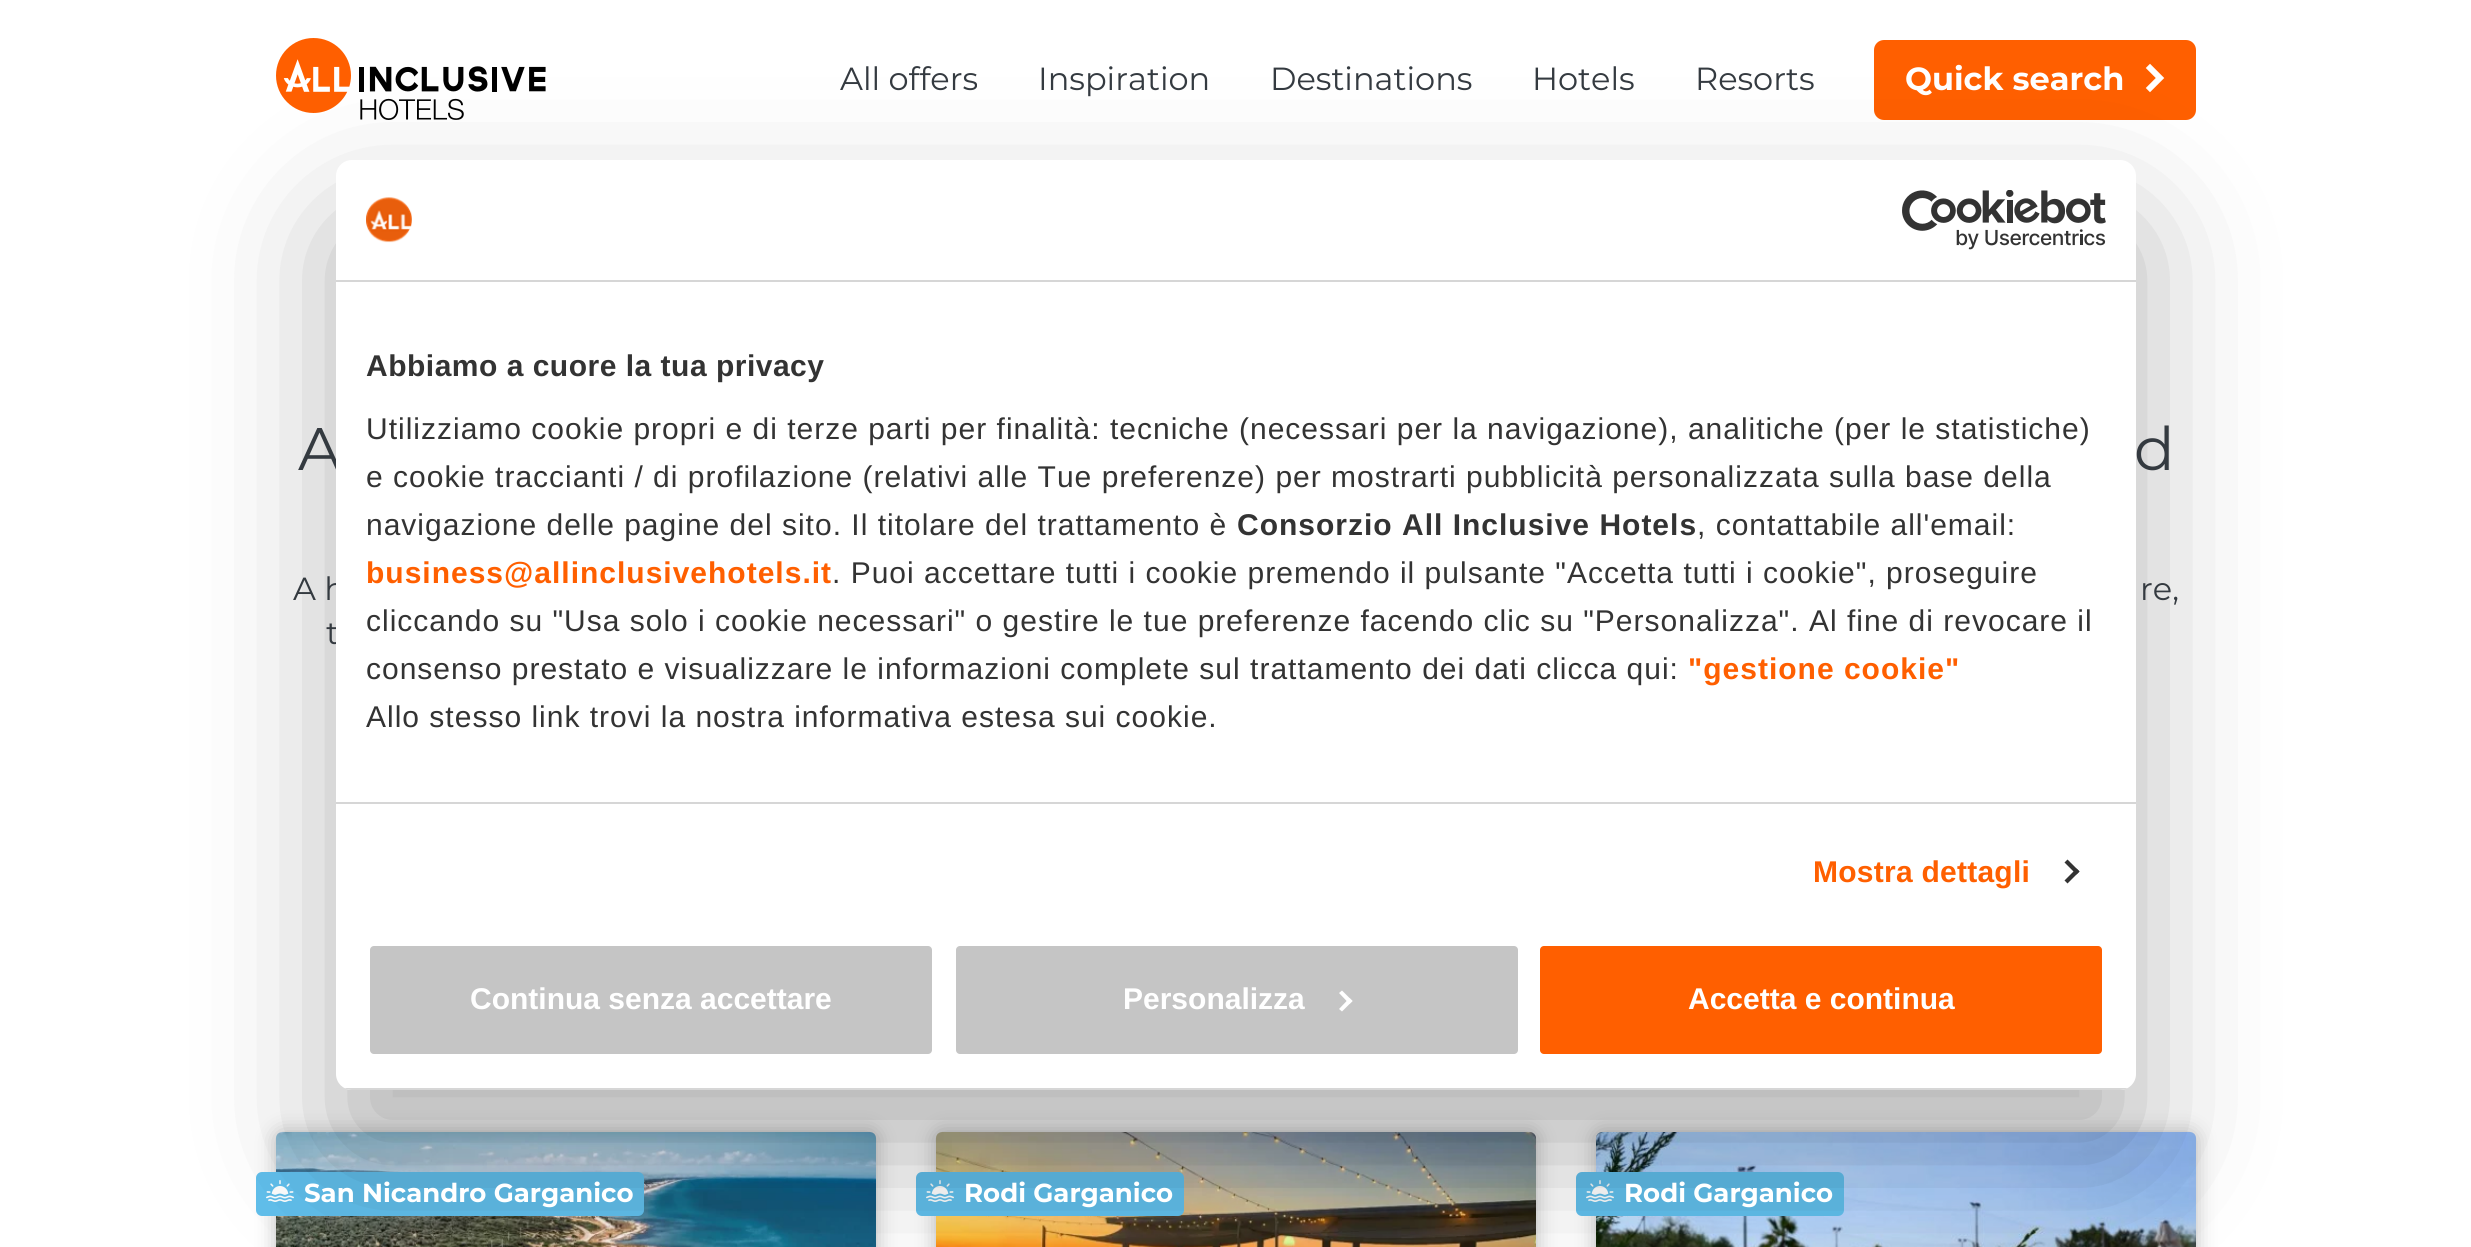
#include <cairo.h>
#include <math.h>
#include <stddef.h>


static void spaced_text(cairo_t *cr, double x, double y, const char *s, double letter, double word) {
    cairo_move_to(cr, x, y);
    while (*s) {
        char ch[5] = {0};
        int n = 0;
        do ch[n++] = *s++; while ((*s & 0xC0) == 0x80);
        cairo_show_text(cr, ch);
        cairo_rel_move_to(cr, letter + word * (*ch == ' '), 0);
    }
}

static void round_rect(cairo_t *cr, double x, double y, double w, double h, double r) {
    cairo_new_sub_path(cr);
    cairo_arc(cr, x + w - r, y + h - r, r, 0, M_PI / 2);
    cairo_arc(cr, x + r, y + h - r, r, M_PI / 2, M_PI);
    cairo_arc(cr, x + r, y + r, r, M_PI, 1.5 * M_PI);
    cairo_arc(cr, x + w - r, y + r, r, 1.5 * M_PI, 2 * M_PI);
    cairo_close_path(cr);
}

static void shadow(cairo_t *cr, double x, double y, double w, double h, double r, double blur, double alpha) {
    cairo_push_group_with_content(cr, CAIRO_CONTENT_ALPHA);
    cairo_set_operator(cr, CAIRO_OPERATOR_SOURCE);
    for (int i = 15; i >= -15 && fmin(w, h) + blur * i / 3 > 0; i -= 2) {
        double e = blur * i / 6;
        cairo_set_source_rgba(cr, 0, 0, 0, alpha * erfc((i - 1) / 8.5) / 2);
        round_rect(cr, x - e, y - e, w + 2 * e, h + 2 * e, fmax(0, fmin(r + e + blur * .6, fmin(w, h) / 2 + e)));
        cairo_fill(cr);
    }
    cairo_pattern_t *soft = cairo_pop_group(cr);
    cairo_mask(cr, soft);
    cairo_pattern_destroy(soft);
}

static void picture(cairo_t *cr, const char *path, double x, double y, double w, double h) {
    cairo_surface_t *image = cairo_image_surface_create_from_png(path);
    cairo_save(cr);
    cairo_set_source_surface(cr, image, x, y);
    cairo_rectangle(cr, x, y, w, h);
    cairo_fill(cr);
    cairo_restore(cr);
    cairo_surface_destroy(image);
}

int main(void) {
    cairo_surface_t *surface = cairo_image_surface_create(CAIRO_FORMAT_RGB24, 2471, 1247);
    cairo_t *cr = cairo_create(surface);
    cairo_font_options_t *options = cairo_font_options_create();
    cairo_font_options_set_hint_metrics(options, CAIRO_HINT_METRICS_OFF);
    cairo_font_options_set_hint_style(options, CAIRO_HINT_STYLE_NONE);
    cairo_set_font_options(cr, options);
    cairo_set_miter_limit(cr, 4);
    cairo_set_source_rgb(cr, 1, 1, 1);
    cairo_paint(cr);
    picture(cr, "img1.png", 276, 38, 270, 82);
    cairo_select_font_face(cr, "Montserrat", CAIRO_FONT_SLANT_NORMAL, CAIRO_FONT_WEIGHT_NORMAL);
    cairo_set_font_size(cr, 32);
    cairo_set_source_rgb(cr, 0.204, 0.227, 0.251);
    cairo_move_to(cr, 840, 90);
    cairo_show_text(cr, "All offers");
    cairo_move_to(cr, 1038, 90);
    cairo_show_text(cr, "Inspiration");
    cairo_move_to(cr, 1270, 90);
    cairo_show_text(cr, "Destinations");
    cairo_move_to(cr, 1532, 90);
    cairo_show_text(cr, "Hotels");
    cairo_move_to(cr, 1695, 90);
    cairo_show_text(cr, "Resorts");
    cairo_set_source_rgb(cr, 1, 0.373, 0);
    round_rect(cr, 1874, 40, 322, 80, 10);
    cairo_fill(cr);
    cairo_select_font_face(cr, "Montserrat", CAIRO_FONT_SLANT_NORMAL, CAIRO_FONT_WEIGHT_BOLD);
    cairo_set_source_rgb(cr, 1, 1, 1);
    cairo_move_to(cr, 1905, 90);
    cairo_show_text(cr, "Quick search");
    cairo_new_path(cr);
    cairo_move_to(cr, 2150, 68);
    cairo_line_to(cr, 2160, 78);
    cairo_line_to(cr, 2150, 88);
    cairo_set_line_width(cr, 6);
    cairo_set_line_cap(cr, CAIRO_LINE_CAP_SQUARE);
    cairo_stroke(cr);
    cairo_set_source_rgb(cr, 0, 0, 0);
    shadow(cr, 276, 1132, 600, 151, 6, 10, 0.25);
    picture(cr, "img4.png", 276, 1132, 600, 115);
    cairo_set_source_rgb(cr, 0.38, 0.749, 0.922);
    round_rect(cr, 256, 1172, 388, 44, 6);
    cairo_fill(cr);
    picture(cr, "img5.png", 266, 1180, 28, 22);
    cairo_set_source_rgb(cr, 0, 0, 0);
    shadow(cr, 936, 1132, 600, 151, 6, 10, 0.25);
    picture(cr, "img6.png", 936, 1132, 600, 115);
    cairo_set_source_rgb(cr, 0.38, 0.749, 0.922);
    round_rect(cr, 916, 1172, 268, 44, 6);
    cairo_fill(cr);
    picture(cr, "img5.png", 926, 1180, 28, 22);
    cairo_set_source_rgb(cr, 0, 0, 0);
    shadow(cr, 1596, 1132, 600, 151, 6, 10, 0.25);
    picture(cr, "img7.png", 1596, 1132, 600, 115);
    cairo_set_source_rgb(cr, 0.38, 0.749, 0.922);
    round_rect(cr, 1576, 1172, 268, 44, 6);
    cairo_fill(cr);
    picture(cr, "img5.png", 1586, 1180, 28, 22);
    cairo_set_source_rgb(cr, 0, 0, 0);
    shadow(cr, 336, 224, 1800, 930, 16, 68, 0.3);
    cairo_select_font_face(cr, "Montserrat", CAIRO_FONT_SLANT_NORMAL, CAIRO_FONT_WEIGHT_NORMAL);
    cairo_set_font_size(cr, 60);
    cairo_set_source_rgb(cr, 0.204, 0.227, 0.251);
    cairo_move_to(cr, 298, 470);
    cairo_show_text(cr, "A");
    cairo_set_font_size(cr, 32);
    cairo_move_to(cr, 293, 600);
    cairo_show_text(cr, "A h");
    cairo_move_to(cr, 326, 644);
    cairo_show_text(cr, "t");
    cairo_set_source_rgb(cr, 1, 1, 1);
    round_rect(cr, 336, 160, 1800, 930, 16);
    cairo_fill(cr);
    cairo_set_source_rgb(cr, 0.839, 0.839, 0.839);
    cairo_rectangle(cr, 336, 280, 1800, 2);
    cairo_fill(cr);
    picture(cr, "img2.png", 366, 197, 46, 46);
    picture(cr, "img3.png", 1902, 190, 204, 60);
    cairo_rectangle(cr, 336, 802, 1800, 2);
    cairo_fill(cr);
    cairo_select_font_face(cr, "Liberation Sans", CAIRO_FONT_SLANT_NORMAL, CAIRO_FONT_WEIGHT_BOLD);
    cairo_set_font_size(cr, 30);
    cairo_set_source_rgb(cr, 0.2, 0.2, 0.2);
    spaced_text(cr, 366, 376, "Abbiamo a cuore la tua privacy", 0.5, 0);
    cairo_select_font_face(cr, "Liberation Sans", CAIRO_FONT_SLANT_NORMAL, CAIRO_FONT_WEIGHT_NORMAL);
    spaced_text(cr, 366, 439, "Utilizziamo cookie propri e di terze parti per finalità: tecniche (necessari per la navigazione), analitiche (per le statistiche)", 1, 0);
    spaced_text(cr, 366, 487, "e cookie traccianti / di profilazione (relativi alle Tue preferenze) per mostrarti pubblicità personalizzata sulla base della", 1, 0);
    spaced_text(cr, 366, 535, "navigazione delle pagine del sito. Il titolare del trattamento è", 1, 0);
    cairo_select_font_face(cr, "Liberation Sans", CAIRO_FONT_SLANT_NORMAL, CAIRO_FONT_WEIGHT_BOLD);
    spaced_text(cr, 1237, 535, "Consorzio All Inclusive Hotels", 1, 0);
    cairo_select_font_face(cr, "Liberation Sans", CAIRO_FONT_SLANT_NORMAL, CAIRO_FONT_WEIGHT_NORMAL);
    spaced_text(cr, 1697, 535, ", contattabile all'email:", 1, 0);
    cairo_select_font_face(cr, "Liberation Sans", CAIRO_FONT_SLANT_NORMAL, CAIRO_FONT_WEIGHT_BOLD);
    cairo_set_source_rgb(cr, 1, 0.373, 0);
    spaced_text(cr, 366, 583, "business@allinclusivehotels.it", 1, 0);
    cairo_select_font_face(cr, "Liberation Sans", CAIRO_FONT_SLANT_NORMAL, CAIRO_FONT_WEIGHT_NORMAL);
    cairo_set_source_rgb(cr, 0.2, 0.2, 0.2);
    spaced_text(cr, 832, 583, ". Puoi accettare tutti i cookie premendo il pulsante \"Accetta tutti i cookie\", proseguire", 1, 0);
    spaced_text(cr, 366, 631, "cliccando su \"Usa solo i cookie necessari\" o gestire le tue preferenze facendo clic su \"Personalizza\". Al fine di revocare il", 1, 0);
    spaced_text(cr, 366, 679, "consenso prestato e visualizzare le informazioni complete sul trattamento dei dati clicca qui:", 1, 0);
    cairo_select_font_face(cr, "Liberation Sans", CAIRO_FONT_SLANT_NORMAL, CAIRO_FONT_WEIGHT_BOLD);
    cairo_set_source_rgb(cr, 1, 0.373, 0);
    spaced_text(cr, 1688, 679, "\"gestione cookie\"", 1, 0);
    cairo_select_font_face(cr, "Liberation Sans", CAIRO_FONT_SLANT_NORMAL, CAIRO_FONT_WEIGHT_NORMAL);
    cairo_set_source_rgb(cr, 0.2, 0.2, 0.2);
    spaced_text(cr, 366, 727, "Allo stesso link trovi la nostra informativa estesa sui cookie.", 1, 0);
    cairo_select_font_face(cr, "Liberation Sans", CAIRO_FONT_SLANT_NORMAL, CAIRO_FONT_WEIGHT_BOLD);
    cairo_set_source_rgb(cr, 1, 0.373, 0);
    spaced_text(cr, 1813, 882, "Mostra dettagli", 0.25, 0);
    cairo_set_source_rgb(cr, 0.2, 0.2, 0.2);
    cairo_new_path(cr);
    cairo_move_to(cr, 2067.5, 859.5);
    cairo_line_to(cr, 2079.5, 871.5);
    cairo_line_to(cr, 2076.5, 874.5);
    cairo_line_to(cr, 2064.5, 862.5);
    cairo_close_path(cr);
    cairo_fill(cr);
    cairo_new_path(cr);
    cairo_move_to(cr, 2076.5, 868.5);
    cairo_line_to(cr, 2079.5, 871.5);
    cairo_line_to(cr, 2067.5, 883.5);
    cairo_line_to(cr, 2064.5, 880.5);
    cairo_close_path(cr);
    cairo_fill(cr);
    cairo_save(cr);
    round_rect(cr, 336, 160, 1800, 930, 16);
    cairo_clip(cr);
    cairo_set_source_rgb(cr, 0.839, 0.839, 0.839);
    cairo_rectangle(cr, 336, 1088, 1800, 2);
    cairo_fill(cr);
    cairo_restore(cr);
    cairo_set_source_rgb(cr, 0.773, 0.773, 0.773);
    round_rect(cr, 368, 944, 566, 112, 6);
    cairo_fill_preserve(cr);
    cairo_set_source_rgb(cr, 1, 1, 1);
    cairo_set_line_width(cr, 4);
    cairo_set_line_cap(cr, CAIRO_LINE_CAP_BUTT);
    cairo_stroke(cr);
    cairo_move_to(cr, 470, 1009);
    cairo_show_text(cr, "Continua senza accettare");
    cairo_set_source_rgb(cr, 0.773, 0.773, 0.773);
    round_rect(cr, 954, 944, 566, 112, 6);
    cairo_fill_preserve(cr);
    cairo_set_source_rgb(cr, 1, 1, 1);
    cairo_stroke(cr);
    cairo_move_to(cr, 1123, 1009);
    cairo_show_text(cr, "Personalizza");
    cairo_new_path(cr);
    cairo_move_to(cr, 1342, 990.5);
    cairo_line_to(cr, 1352.5, 1001);
    cairo_line_to(cr, 1349.5, 1004);
    cairo_line_to(cr, 1339, 993);
    cairo_close_path(cr);
    cairo_fill(cr);
    cairo_new_path(cr);
    cairo_move_to(cr, 1349.5, 998);
    cairo_line_to(cr, 1352.5, 1001);
    cairo_line_to(cr, 1342, 1011.5);
    cairo_line_to(cr, 1339, 1009);
    cairo_close_path(cr);
    cairo_fill(cr);
    cairo_set_source_rgb(cr, 1, 0.373, 0);
    round_rect(cr, 1538, 944, 566, 112, 6);
    cairo_fill_preserve(cr);
    cairo_set_source_rgb(cr, 1, 1, 1);
    cairo_stroke(cr);
    cairo_move_to(cr, 1688, 1009);
    cairo_show_text(cr, "Accetta e continua");
    cairo_select_font_face(cr, "Montserrat", CAIRO_FONT_SLANT_NORMAL, CAIRO_FONT_WEIGHT_NORMAL);
    cairo_set_font_size(cr, 60);
    cairo_set_source_rgb(cr, 0.204, 0.227, 0.251);
    cairo_move_to(cr, 2134, 470);
    cairo_show_text(cr, "d");
    cairo_set_font_size(cr, 32);
    cairo_move_to(cr, 2140, 600);
    cairo_show_text(cr, "re,");
    cairo_select_font_face(cr, "Montserrat", CAIRO_FONT_SLANT_NORMAL, CAIRO_FONT_WEIGHT_BOLD);
    cairo_set_font_size(cr, 26);
    cairo_set_source_rgb(cr, 1, 1, 1);
    cairo_move_to(cr, 304, 1202);
    cairo_show_text(cr, "San Nicandro Garganico");
    cairo_move_to(cr, 964, 1202);
    cairo_show_text(cr, "Rodi Garganico");
    cairo_move_to(cr, 1624, 1202);
    cairo_show_text(cr, "Rodi Garganico");
    cairo_surface_write_to_png(surface, "page.png");
    cairo_font_options_destroy(options);
    cairo_destroy(cr);
    cairo_surface_destroy(surface);
    return 0;
}
